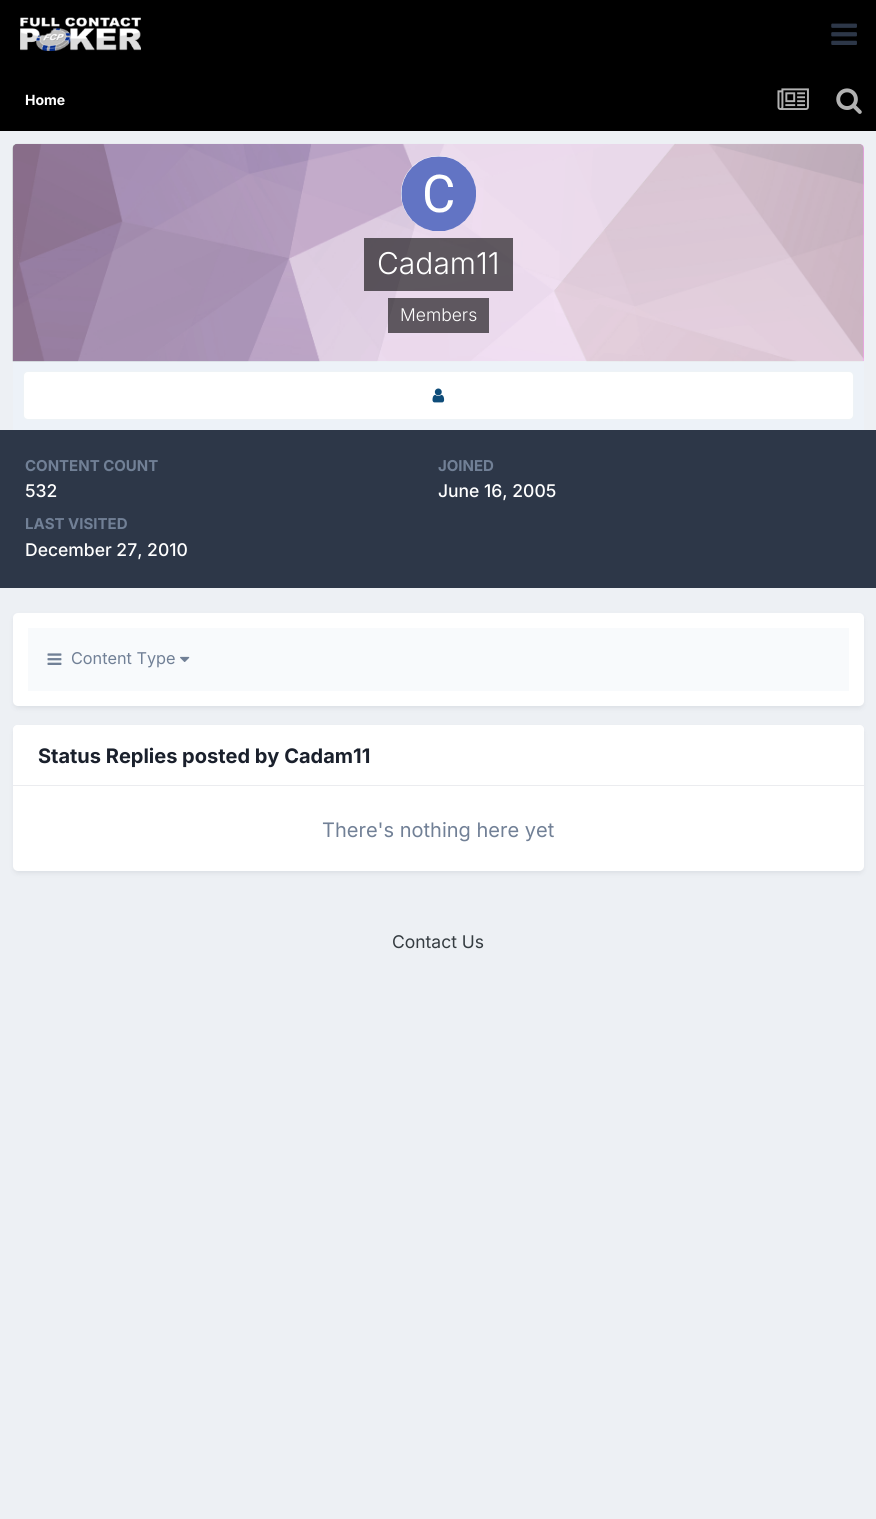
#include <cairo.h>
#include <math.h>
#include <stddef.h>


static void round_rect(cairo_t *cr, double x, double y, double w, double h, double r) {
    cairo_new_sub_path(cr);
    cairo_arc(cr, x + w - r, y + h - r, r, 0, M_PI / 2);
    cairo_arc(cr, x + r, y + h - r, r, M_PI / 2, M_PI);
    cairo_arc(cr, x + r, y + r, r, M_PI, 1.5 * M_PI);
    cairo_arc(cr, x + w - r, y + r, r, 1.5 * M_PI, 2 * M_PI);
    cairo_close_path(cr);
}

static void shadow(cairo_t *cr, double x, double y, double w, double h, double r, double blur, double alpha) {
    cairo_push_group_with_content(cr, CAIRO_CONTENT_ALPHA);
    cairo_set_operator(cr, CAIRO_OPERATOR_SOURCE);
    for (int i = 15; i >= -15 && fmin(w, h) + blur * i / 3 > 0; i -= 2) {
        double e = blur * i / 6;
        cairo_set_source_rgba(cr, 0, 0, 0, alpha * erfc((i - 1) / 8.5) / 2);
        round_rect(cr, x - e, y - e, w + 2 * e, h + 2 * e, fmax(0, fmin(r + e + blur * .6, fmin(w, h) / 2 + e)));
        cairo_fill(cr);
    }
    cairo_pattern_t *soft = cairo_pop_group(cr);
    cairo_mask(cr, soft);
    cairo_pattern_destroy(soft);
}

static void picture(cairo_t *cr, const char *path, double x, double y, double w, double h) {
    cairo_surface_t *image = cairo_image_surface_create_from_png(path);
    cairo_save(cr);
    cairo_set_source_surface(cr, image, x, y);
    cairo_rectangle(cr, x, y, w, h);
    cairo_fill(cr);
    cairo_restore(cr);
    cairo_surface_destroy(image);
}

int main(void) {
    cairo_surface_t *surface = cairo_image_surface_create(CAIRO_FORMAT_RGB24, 876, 1519);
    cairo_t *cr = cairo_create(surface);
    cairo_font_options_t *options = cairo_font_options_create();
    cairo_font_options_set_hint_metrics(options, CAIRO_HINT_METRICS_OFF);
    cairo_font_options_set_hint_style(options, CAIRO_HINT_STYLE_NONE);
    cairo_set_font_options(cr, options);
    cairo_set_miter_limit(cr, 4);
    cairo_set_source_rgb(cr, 0.929, 0.941, 0.957);
    cairo_paint(cr);
    cairo_set_source_rgb(cr, 0, 0, 0);
    cairo_rectangle(cr, 0, 0, 876, 131);
    cairo_fill(cr);
    picture(cr, "img1.png", 20, 17, 121, 34);
    picture(cr, "img2.png", 831, 23, 26, 22);
    cairo_select_font_face(cr, "Inter", CAIRO_FONT_SLANT_NORMAL, CAIRO_FONT_WEIGHT_BOLD);
    cairo_set_font_size(cr, 14);
    cairo_set_source_rgb(cr, 1, 1, 1);
    cairo_move_to(cr, 25, 105);
    cairo_show_text(cr, "Home");
    picture(cr, "img3.png", 777, 88, 32, 22);
    picture(cr, "img4.png", 836, 88, 26, 26);
    cairo_set_source_rgb(cr, 0.988, 0.6, 1);
    cairo_new_path(cr);
    cairo_move_to(cr, 18, 144);
    cairo_line_to(cr, 859, 144);
    cairo_curve_to(cr, 862, 144, 864, 146, 864, 149);
    cairo_line_to(cr, 864, 361);
    cairo_line_to(cr, 13, 361);
    cairo_line_to(cr, 13, 149);
    cairo_curve_to(cr, 13, 146, 15, 144, 18, 144);
    cairo_close_path(cr);
    cairo_fill(cr);
    cairo_set_source_rgb(cr, 0.929, 0.949, 0.969);
    cairo_rectangle(cr, 13, 361, 851, 69);
    cairo_fill(cr);
    picture(cr, "img5.png", 12, 143, 852, 219);
    cairo_set_source_rgb(cr, 1, 1, 1);
    cairo_arc(cr, 438.5, 193.5, 37.5, 0, 2 * M_PI);
    cairo_fill(cr);
    picture(cr, "img6.png", 401, 156, 75, 75);
    cairo_set_source_rgba(cr, 0, 0, 0, 0.6);
    cairo_rectangle(cr, 364, 238, 149, 53);
    cairo_fill(cr);
    cairo_select_font_face(cr, "Inter Light", CAIRO_FONT_SLANT_NORMAL, CAIRO_FONT_WEIGHT_NORMAL);
    cairo_set_font_size(cr, 30);
    cairo_set_source_rgb(cr, 1, 1, 1);
    cairo_move_to(cr, 377, 274);
    cairo_show_text(cr, "Cadam11");
    cairo_set_source_rgba(cr, 0, 0, 0, 0.6);
    cairo_rectangle(cr, 388, 298, 101, 35);
    cairo_fill(cr);
    cairo_set_font_size(cr, 17.5);
    cairo_set_source_rgb(cr, 1, 1, 1);
    cairo_move_to(cr, 400, 321);
    cairo_show_text(cr, "Members");
    round_rect(cr, 23, 371, 831, 49, 5);
    cairo_fill(cr);
    round_rect(cr, 23.5, 371.5, 830, 48, 4.5);
    cairo_set_source_rgba(cr, 0.055, 0.298, 0.475, 0.07);
    cairo_set_line_width(cr, 1);
    cairo_stroke(cr);
    picture(cr, "img7.png", 432, 388, 13, 15);
    cairo_set_source_rgb(cr, 0.176, 0.216, 0.282);
    cairo_rectangle(cr, 0, 430, 876, 158);
    cairo_fill(cr);
    cairo_select_font_face(cr, "Inter", CAIRO_FONT_SLANT_NORMAL, CAIRO_FONT_WEIGHT_BOLD);
    cairo_set_font_size(cr, 15);
    cairo_set_source_rgb(cr, 0.443, 0.502, 0.588);
    cairo_move_to(cr, 25, 471);
    cairo_show_text(cr, "CONTENT COUNT");
    cairo_select_font_face(cr, "Inter Medium", CAIRO_FONT_SLANT_NORMAL, CAIRO_FONT_WEIGHT_NORMAL);
    cairo_set_font_size(cr, 17.5);
    cairo_set_source_rgb(cr, 1, 1, 1);
    cairo_move_to(cr, 25, 497);
    cairo_show_text(cr, "532");
    cairo_select_font_face(cr, "Inter", CAIRO_FONT_SLANT_NORMAL, CAIRO_FONT_WEIGHT_BOLD);
    cairo_set_font_size(cr, 15);
    cairo_set_source_rgb(cr, 0.443, 0.502, 0.588);
    cairo_move_to(cr, 438, 471);
    cairo_show_text(cr, "JOINED");
    cairo_select_font_face(cr, "Inter Medium", CAIRO_FONT_SLANT_NORMAL, CAIRO_FONT_WEIGHT_NORMAL);
    cairo_set_font_size(cr, 17.5);
    cairo_set_source_rgb(cr, 1, 1, 1);
    cairo_move_to(cr, 438, 497);
    cairo_show_text(cr, "June 16, 2005");
    cairo_select_font_face(cr, "Inter", CAIRO_FONT_SLANT_NORMAL, CAIRO_FONT_WEIGHT_BOLD);
    cairo_set_font_size(cr, 15);
    cairo_set_source_rgb(cr, 0.443, 0.502, 0.588);
    cairo_move_to(cr, 25, 529);
    cairo_show_text(cr, "LAST VISITED");
    cairo_select_font_face(cr, "Inter Medium", CAIRO_FONT_SLANT_NORMAL, CAIRO_FONT_WEIGHT_NORMAL);
    cairo_set_font_size(cr, 17.5);
    cairo_set_source_rgb(cr, 1, 1, 1);
    cairo_move_to(cr, 25, 556);
    cairo_show_text(cr, "December 27, 2010");
    cairo_set_source_rgb(cr, 0.176, 0.216, 0.282);
    shadow(cr, 14, 616, 849, 92, 4, 2.5, 0.1);
    cairo_set_source_rgb(cr, 1, 1, 1);
    round_rect(cr, 13, 613, 851, 93, 5);
    cairo_fill(cr);
    cairo_set_source_rgb(cr, 0.969, 0.98, 0.988);
    cairo_rectangle(cr, 28, 628, 821, 63);
    cairo_fill(cr);
    picture(cr, "img8.png", 47, 653, 15, 12);
    cairo_select_font_face(cr, "Inter", CAIRO_FONT_SLANT_NORMAL, CAIRO_FONT_WEIGHT_NORMAL);
    cairo_set_font_size(cr, 16.25);
    cairo_set_source_rgb(cr, 0.443, 0.502, 0.588);
    cairo_move_to(cr, 71, 664);
    cairo_show_text(cr, "Content Type");
    picture(cr, "img9.png", 180, 656, 10, 6);
    cairo_set_source_rgb(cr, 0.176, 0.216, 0.282);
    shadow(cr, 14, 729, 849, 144, 4, 2.5, 0.1);
    cairo_set_source_rgb(cr, 1, 1, 1);
    round_rect(cr, 13, 725, 851, 146, 5);
    cairo_fill(cr);
    cairo_new_path(cr);
    cairo_move_to(cr, 18, 725);
    cairo_line_to(cr, 859, 725);
    cairo_curve_to(cr, 862, 725, 864, 727, 864, 730);
    cairo_line_to(cr, 864, 786);
    cairo_line_to(cr, 13, 786);
    cairo_line_to(cr, 13, 730);
    cairo_curve_to(cr, 13, 727, 15, 725, 18, 725);
    cairo_close_path(cr);
    cairo_fill(cr);
    cairo_set_source_rgb(cr, 0.918, 0.925, 0.937);
    cairo_rectangle(cr, 13, 785, 851, 1);
    cairo_fill(cr);
    cairo_select_font_face(cr, "Inter", CAIRO_FONT_SLANT_NORMAL, CAIRO_FONT_WEIGHT_BOLD);
    cairo_set_font_size(cr, 20);
    cairo_set_source_rgb(cr, 0.102, 0.125, 0.173);
    cairo_move_to(cr, 38, 763);
    cairo_show_text(cr, "Status Replies posted by Cadam11");
    cairo_select_font_face(cr, "Inter", CAIRO_FONT_SLANT_NORMAL, CAIRO_FONT_WEIGHT_NORMAL);
    cairo_set_source_rgb(cr, 0.443, 0.502, 0.588);
    cairo_move_to(cr, 322, 837);
    cairo_show_text(cr, "There's nothing here yet");
    cairo_set_font_size(cr, 17.5);
    cairo_set_source_rgb(cr, 0.208, 0.235, 0.255);
    cairo_move_to(cr, 392, 948);
    cairo_show_text(cr, "Contact Us");
    cairo_surface_write_to_png(surface, "page.png");
    cairo_font_options_destroy(options);
    cairo_destroy(cr);
    cairo_surface_destroy(surface);
    return 0;
}
